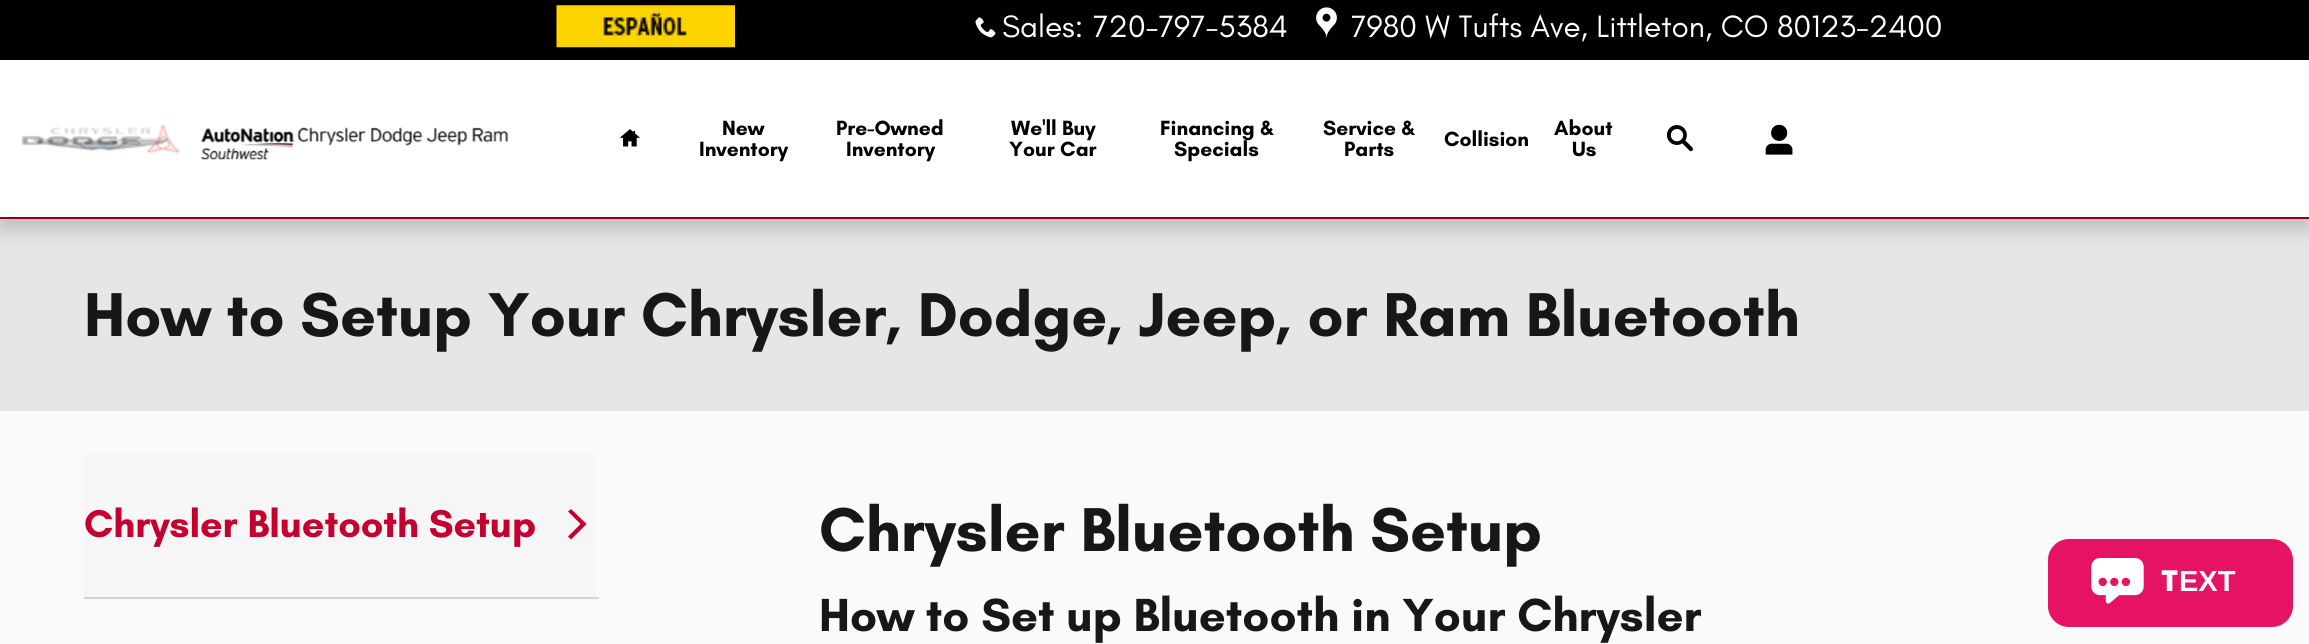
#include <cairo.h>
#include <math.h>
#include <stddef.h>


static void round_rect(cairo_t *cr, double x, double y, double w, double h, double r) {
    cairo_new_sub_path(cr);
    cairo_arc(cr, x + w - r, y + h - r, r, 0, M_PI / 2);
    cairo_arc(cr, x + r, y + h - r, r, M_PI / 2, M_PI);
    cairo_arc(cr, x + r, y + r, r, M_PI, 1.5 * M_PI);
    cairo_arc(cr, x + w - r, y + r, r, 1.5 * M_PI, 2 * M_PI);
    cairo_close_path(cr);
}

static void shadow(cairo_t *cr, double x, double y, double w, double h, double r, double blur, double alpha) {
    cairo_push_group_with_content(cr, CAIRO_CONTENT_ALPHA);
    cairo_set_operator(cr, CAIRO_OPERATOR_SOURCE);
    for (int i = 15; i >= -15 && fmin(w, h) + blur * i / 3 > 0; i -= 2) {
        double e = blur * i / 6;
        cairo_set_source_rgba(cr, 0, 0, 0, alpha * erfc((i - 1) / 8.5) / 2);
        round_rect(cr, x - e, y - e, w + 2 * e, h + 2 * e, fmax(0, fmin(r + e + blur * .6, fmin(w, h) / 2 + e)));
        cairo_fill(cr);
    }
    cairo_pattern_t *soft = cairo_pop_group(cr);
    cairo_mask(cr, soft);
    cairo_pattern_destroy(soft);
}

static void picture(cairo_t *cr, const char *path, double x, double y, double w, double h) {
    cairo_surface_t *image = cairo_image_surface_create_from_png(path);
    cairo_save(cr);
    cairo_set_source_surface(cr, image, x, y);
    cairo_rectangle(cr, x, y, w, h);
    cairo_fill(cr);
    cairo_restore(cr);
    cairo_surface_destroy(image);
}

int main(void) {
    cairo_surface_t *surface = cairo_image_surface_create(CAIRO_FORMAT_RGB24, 2309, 644);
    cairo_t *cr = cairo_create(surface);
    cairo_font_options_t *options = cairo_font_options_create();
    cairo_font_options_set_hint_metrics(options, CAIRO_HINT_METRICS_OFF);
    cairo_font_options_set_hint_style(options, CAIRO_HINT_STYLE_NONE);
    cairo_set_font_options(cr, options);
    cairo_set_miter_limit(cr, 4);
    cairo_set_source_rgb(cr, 0.98, 0.98, 0.98);
    cairo_paint(cr);
    cairo_set_source_rgb(cr, 0.906, 0.902, 0.902);
    cairo_rectangle(cr, 0, 219, 2309, 192);
    cairo_fill(cr);
    cairo_set_source_rgb(cr, 0, 0, 0);
    shadow(cr, 0, 11, 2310, 218, 0, 10.5, 0.18);
    cairo_set_source_rgb(cr, 1, 1, 1);
    cairo_rectangle(cr, 0, 60, 2309, 157);
    cairo_fill(cr);
    cairo_set_source_rgb(cr, 0.565, 0, 0.114);
    cairo_rectangle(cr, 0, 217, 2309, 2);
    cairo_fill(cr);
    cairo_set_source_rgb(cr, 0, 0, 0);
    cairo_rectangle(cr, 0, 0, 2309, 60);
    cairo_fill(cr);
    picture(cr, "img1.png", 556, 5, 179, 43);
    picture(cr, "img2.png", 975, 17, 21, 21);
    cairo_select_font_face(cr, "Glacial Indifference", CAIRO_FONT_SLANT_NORMAL, CAIRO_FONT_WEIGHT_NORMAL);
    cairo_set_font_size(cr, 31.5);
    cairo_set_source_rgb(cr, 1, 1, 1);
    cairo_move_to(cr, 1002, 37);
    cairo_show_text(cr, "Sales:");
    cairo_move_to(cr, 1093, 37);
    cairo_show_text(cr, "720-797-5384");
    picture(cr, "img3.png", 1316, 7, 21, 31);
    cairo_move_to(cr, 1351, 37);
    cairo_show_text(cr, "7980 W Tufts Ave, Littleton, CO 80123-2400");
    picture(cr, "img5.png", 31, 127, 139, 25);
    picture(cr, "img4.png", 21, 124, 159, 30);
    picture(cr, "img6.png", 200, 127, 308, 33);
    picture(cr, "img7.png", 619, 129, 21, 18);
    cairo_select_font_face(cr, "Glacial Indifference", CAIRO_FONT_SLANT_NORMAL, CAIRO_FONT_WEIGHT_BOLD);
    cairo_set_font_size(cr, 21);
    cairo_set_source_rgb(cr, 0, 0, 0);
    cairo_move_to(cr, 722, 135);
    cairo_show_text(cr, "New");
    cairo_move_to(cr, 699, 156);
    cairo_show_text(cr, "Inventory");
    cairo_move_to(cr, 836, 135);
    cairo_show_text(cr, "Pre-Owned");
    cairo_move_to(cr, 846, 156);
    cairo_show_text(cr, "Inventory");
    cairo_move_to(cr, 1011, 135);
    cairo_show_text(cr, "We'll Buy");
    cairo_move_to(cr, 1009, 156);
    cairo_show_text(cr, "Your Car");
    cairo_move_to(cr, 1160, 135);
    cairo_show_text(cr, "Financing &");
    cairo_move_to(cr, 1174, 156);
    cairo_show_text(cr, "Specials");
    cairo_move_to(cr, 1323, 135);
    cairo_show_text(cr, "Service &");
    cairo_move_to(cr, 1344, 156);
    cairo_show_text(cr, "Parts");
    cairo_move_to(cr, 1444, 146);
    cairo_show_text(cr, "Collision");
    cairo_move_to(cr, 1554, 135);
    cairo_show_text(cr, "About");
    cairo_move_to(cr, 1572, 156);
    cairo_show_text(cr, "Us");
    picture(cr, "img8.png", 1666, 125, 27, 27);
    picture(cr, "img9.png", 1765, 124, 28, 31);
    cairo_set_font_size(cr, 63);
    cairo_set_source_rgb(cr, 0.09, 0.09, 0.09);
    cairo_move_to(cr, 84, 336);
    cairo_show_text(cr, "How to Setup Your Chrysler, Dodge, Jeep, or Ram Bluetooth");
    cairo_set_source_rgb(cr, 0.961, 0.961, 0.961);
    cairo_rectangle(cr, 84, 453, 511, 144);
    cairo_fill(cr);
    cairo_set_font_size(cr, 39.4);
    cairo_set_source_rgb(cr, 0.765, 0, 0.184);
    cairo_move_to(cr, 84, 537);
    cairo_show_text(cr, "Chrysler Bluetooth Setup");
    cairo_new_path(cr);
    cairo_move_to(cr, 571, 509);
    cairo_line_to(cr, 568, 511.5);
    cairo_line_to(cr, 580.5, 524);
    cairo_line_to(cr, 568, 536.5);
    cairo_line_to(cr, 571, 539.5);
    cairo_line_to(cr, 586.5, 524);
    cairo_close_path(cr);
    cairo_fill(cr);
    cairo_set_source_rgb(cr, 0.831, 0.824, 0.824);
    cairo_rectangle(cr, 84, 597, 515, 2);
    cairo_fill(cr);
    cairo_set_font_size(cr, 63);
    cairo_set_source_rgb(cr, 0.09, 0.09, 0.09);
    cairo_move_to(cr, 819, 551);
    cairo_show_text(cr, "Chrysler Bluetooth Setup");
    cairo_set_font_size(cr, 47.25);
    cairo_move_to(cr, 819, 631);
    cairo_show_text(cr, "How to Set up Bluetooth in Your Chrysler");
    cairo_set_source_rgb(cr, 0.902, 0.078, 0.392);
    round_rect(cr, 2048, 539, 245, 88, 21);
    cairo_fill(cr);
    picture(cr, "img10.png", 2091, 558, 53, 46);
    cairo_select_font_face(cr, "Noto Sans Black", CAIRO_FONT_SLANT_NORMAL, CAIRO_FONT_WEIGHT_NORMAL);
    cairo_set_font_size(cr, 29);
    cairo_set_source_rgb(cr, 1, 1, 1);
    cairo_move_to(cr, 2161, 591);
    cairo_show_text(cr, "T");
    cairo_select_font_face(cr, "Liberation Sans", CAIRO_FONT_SLANT_NORMAL, CAIRO_FONT_WEIGHT_BOLD);
    cairo_move_to(cr, 2179, 591);
    cairo_show_text(cr, "EXT");
    cairo_surface_write_to_png(surface, "page.png");
    cairo_font_options_destroy(options);
    cairo_destroy(cr);
    cairo_surface_destroy(surface);
    return 0;
}
